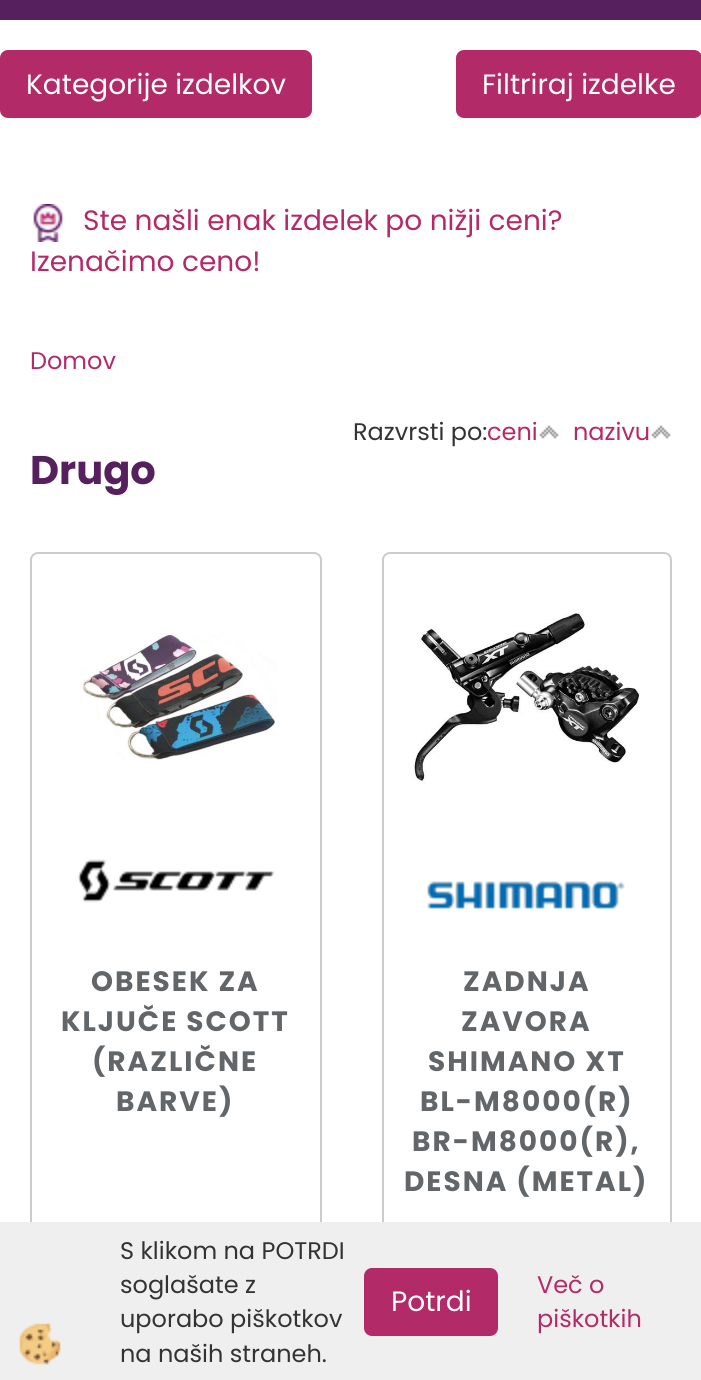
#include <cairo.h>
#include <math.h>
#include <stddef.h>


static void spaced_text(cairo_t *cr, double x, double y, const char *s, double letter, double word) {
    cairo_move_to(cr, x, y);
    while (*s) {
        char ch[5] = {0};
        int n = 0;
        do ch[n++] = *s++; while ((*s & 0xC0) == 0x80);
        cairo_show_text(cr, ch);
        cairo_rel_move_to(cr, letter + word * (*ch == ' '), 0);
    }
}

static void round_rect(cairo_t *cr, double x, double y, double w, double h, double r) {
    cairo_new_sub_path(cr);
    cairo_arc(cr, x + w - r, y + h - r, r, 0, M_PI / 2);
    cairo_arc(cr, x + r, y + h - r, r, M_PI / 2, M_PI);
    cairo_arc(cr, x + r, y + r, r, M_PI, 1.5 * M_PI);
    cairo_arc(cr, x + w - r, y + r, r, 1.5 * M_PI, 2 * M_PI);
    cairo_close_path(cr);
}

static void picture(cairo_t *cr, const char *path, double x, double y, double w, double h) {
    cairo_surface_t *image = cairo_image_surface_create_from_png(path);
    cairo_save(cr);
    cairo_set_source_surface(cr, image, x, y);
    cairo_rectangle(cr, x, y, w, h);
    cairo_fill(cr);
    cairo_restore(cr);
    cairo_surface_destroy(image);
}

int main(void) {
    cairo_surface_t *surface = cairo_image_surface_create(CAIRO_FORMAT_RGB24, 701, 1380);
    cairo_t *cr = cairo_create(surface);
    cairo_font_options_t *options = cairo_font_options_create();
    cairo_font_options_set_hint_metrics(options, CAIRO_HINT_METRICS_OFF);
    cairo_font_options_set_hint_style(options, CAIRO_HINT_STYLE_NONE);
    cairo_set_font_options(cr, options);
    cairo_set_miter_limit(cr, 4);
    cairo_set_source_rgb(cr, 1, 1, 1);
    cairo_paint(cr);
    cairo_set_source_rgb(cr, 0.337, 0.122, 0.369);
    cairo_rectangle(cr, 0, 0, 701, 20);
    cairo_fill(cr);
    cairo_set_source_rgb(cr, 0.702, 0.165, 0.408);
    round_rect(cr, 1, 51, 310, 66, 7);
    cairo_fill_preserve(cr);
    cairo_stroke(cr);
    cairo_select_font_face(cr, "Poppins", CAIRO_FONT_SLANT_NORMAL, CAIRO_FONT_WEIGHT_NORMAL);
    cairo_set_font_size(cr, 28);
    cairo_set_source_rgb(cr, 1, 1, 1);
    cairo_move_to(cr, 26, 94);
    cairo_show_text(cr, "Kategorije izdelkov");
    cairo_set_source_rgb(cr, 0.702, 0.165, 0.408);
    round_rect(cr, 457, 51, 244, 66, 7);
    cairo_fill_preserve(cr);
    cairo_stroke(cr);
    cairo_set_source_rgb(cr, 1, 1, 1);
    cairo_move_to(cr, 482, 94);
    cairo_show_text(cr, "Filtriraj izdelke");
    picture(cr, "img1.png", 33, 204, 30, 38);
    cairo_set_source_rgb(cr, 0.702, 0.165, 0.408);
    cairo_move_to(cr, 83, 230);
    cairo_show_text(cr, "Ste našli enak izdelek po nižji ceni?");
    cairo_move_to(cr, 30, 271);
    cairo_show_text(cr, "Izenačimo ceno!");
    cairo_set_font_size(cr, 24);
    cairo_move_to(cr, 30, 369);
    cairo_show_text(cr, "Domov");
    cairo_set_source_rgb(cr, 0.2, 0.2, 0.2);
    cairo_move_to(cr, 353, 440);
    cairo_show_text(cr, "Razvrsti po:");
    cairo_set_source_rgb(cr, 0.702, 0.165, 0.408);
    cairo_move_to(cr, 487, 440);
    cairo_show_text(cr, "ceni");
    picture(cr, "img2.png", 539, 425, 20, 14);
    cairo_move_to(cr, 573, 440);
    cairo_show_text(cr, "nazivu");
    picture(cr, "img2.png", 651, 425, 20, 14);
    cairo_select_font_face(cr, "Poppins", CAIRO_FONT_SLANT_NORMAL, CAIRO_FONT_WEIGHT_BOLD);
    cairo_set_font_size(cr, 40);
    cairo_set_source_rgb(cr, 0.337, 0.122, 0.369);
    cairo_move_to(cr, 30, 484);
    cairo_show_text(cr, "Drugo");
    round_rect(cr, 31, 553, 290, 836, 7);
    cairo_set_source_rgb(cr, 0.8, 0.8, 0.8);
    cairo_stroke(cr);
    picture(cr, "img3.png", 79, 634, 198, 126);
    picture(cr, "img4.png", 77, 859, 198, 44);
    cairo_set_font_size(cr, 28);
    cairo_set_source_rgb(cr, 0.384, 0.4, 0.412);
    spaced_text(cr, 91, 991, "OBESEK ZA", 2, 0);
    spaced_text(cr, 61, 1031, "KLJUČE SCOTT", 2, 0);
    spaced_text(cr, 92, 1071, "(RAZLIČNE", 2, 0);
    spaced_text(cr, 116, 1111, "BARVE)", 2, 0);
    round_rect(cr, 383, 553, 288, 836, 7);
    cairo_set_source_rgb(cr, 0.8, 0.8, 0.8);
    cairo_stroke(cr);
    picture(cr, "img5.png", 413, 613, 227, 171);
    picture(cr, "img6.png", 427, 881, 198, 28);
    cairo_set_source_rgb(cr, 0.384, 0.4, 0.412);
    spaced_text(cr, 463, 991, "ZADNJA", 2, 0);
    spaced_text(cr, 461, 1031, "ZAVORA", 2, 0);
    spaced_text(cr, 428, 1071, "SHIMANO XT", 2, 0);
    spaced_text(cr, 420, 1111, "BL-M8000(R)", 2, 0);
    spaced_text(cr, 412, 1151, "BR-M8000(R),", 2, 0);
    spaced_text(cr, 404, 1191, "DESNA (METAL)", 2, 0);
    cairo_set_source_rgb(cr, 0.937, 0.937, 0.937);
    cairo_rectangle(cr, 0, 1222, 701, 158);
    cairo_fill(cr);
    picture(cr, "img7.png", 19, 1323, 42, 42);
    cairo_select_font_face(cr, "Poppins", CAIRO_FONT_SLANT_NORMAL, CAIRO_FONT_WEIGHT_NORMAL);
    cairo_set_font_size(cr, 24);
    cairo_set_source_rgb(cr, 0.2, 0.2, 0.2);
    cairo_move_to(cr, 120, 1259);
    cairo_show_text(cr, "S klikom na POTRDI");
    cairo_move_to(cr, 120, 1293);
    cairo_show_text(cr, "soglašate z");
    cairo_set_source_rgb(cr, 0.702, 0.165, 0.408);
    round_rect(cr, 365, 1269, 132, 66, 7);
    cairo_fill_preserve(cr);
    cairo_stroke(cr);
    cairo_set_font_size(cr, 28);
    cairo_set_source_rgb(cr, 1, 1, 1);
    cairo_move_to(cr, 391, 1311);
    cairo_show_text(cr, "Potrdi");
    cairo_set_font_size(cr, 24);
    cairo_set_source_rgb(cr, 0.702, 0.165, 0.408);
    cairo_move_to(cr, 537, 1293);
    cairo_show_text(cr, "Več o");
    cairo_move_to(cr, 537, 1327);
    cairo_show_text(cr, "piškotkih");
    cairo_set_source_rgb(cr, 0.2, 0.2, 0.2);
    cairo_move_to(cr, 120, 1327);
    cairo_show_text(cr, "uporabo piškotkov");
    cairo_move_to(cr, 120, 1362);
    cairo_show_text(cr, "na naših straneh.");
    cairo_surface_write_to_png(surface, "page.png");
    cairo_font_options_destroy(options);
    cairo_destroy(cr);
    cairo_surface_destroy(surface);
    return 0;
}
